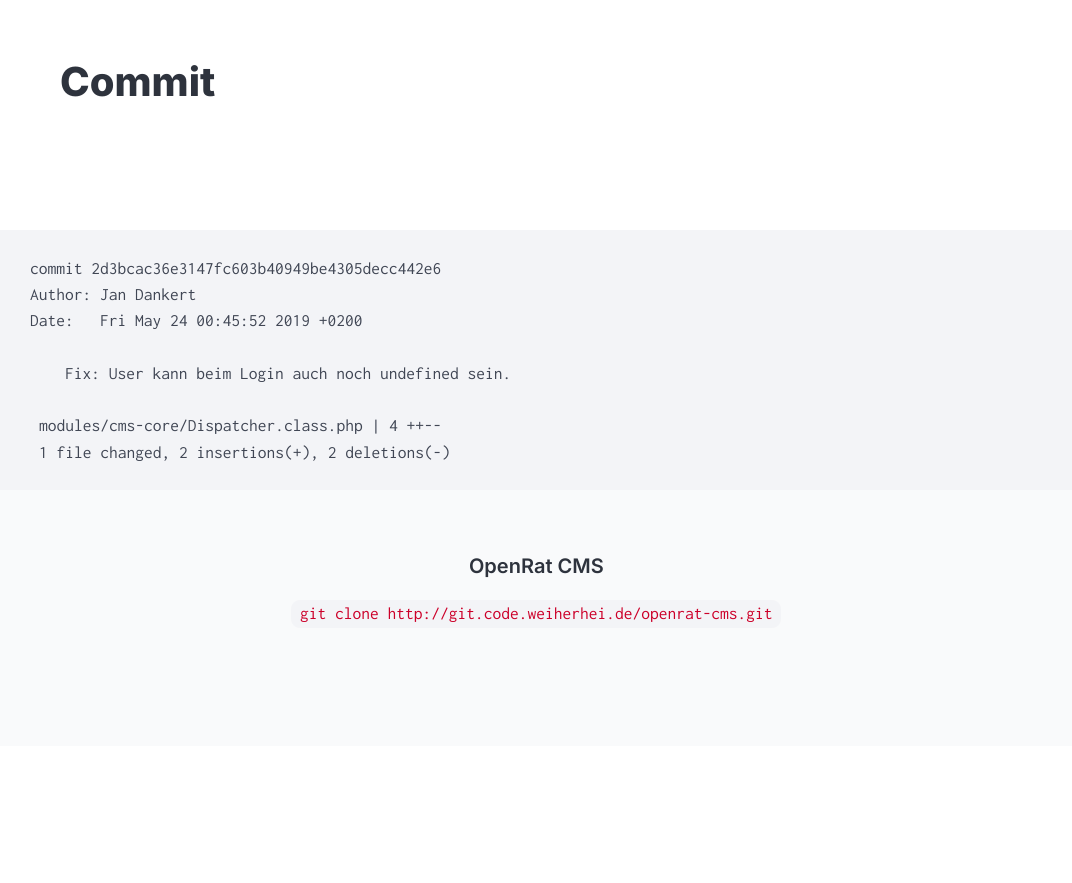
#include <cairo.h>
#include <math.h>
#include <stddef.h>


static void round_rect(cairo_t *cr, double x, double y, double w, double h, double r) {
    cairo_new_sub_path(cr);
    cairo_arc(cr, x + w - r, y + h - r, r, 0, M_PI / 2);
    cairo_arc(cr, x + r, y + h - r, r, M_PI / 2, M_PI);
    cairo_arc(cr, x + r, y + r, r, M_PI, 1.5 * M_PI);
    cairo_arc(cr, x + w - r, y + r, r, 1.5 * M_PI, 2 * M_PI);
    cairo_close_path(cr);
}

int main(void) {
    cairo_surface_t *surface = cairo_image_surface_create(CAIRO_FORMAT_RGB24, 1072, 883);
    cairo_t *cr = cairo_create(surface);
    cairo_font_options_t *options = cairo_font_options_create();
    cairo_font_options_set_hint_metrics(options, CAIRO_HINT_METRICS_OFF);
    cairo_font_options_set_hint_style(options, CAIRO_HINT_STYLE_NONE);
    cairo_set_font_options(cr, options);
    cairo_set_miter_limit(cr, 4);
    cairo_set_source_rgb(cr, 1, 1, 1);
    cairo_paint(cr);
    cairo_select_font_face(cr, "Inter ExtraBold", CAIRO_FONT_SLANT_NORMAL, CAIRO_FONT_WEIGHT_NORMAL);
    cairo_set_font_size(cr, 40);
    cairo_set_source_rgb(cr, 0.18, 0.2, 0.239);
    cairo_move_to(cr, 60, 96);
    cairo_show_text(cr, "Commit");
    cairo_set_source_rgb(cr, 0.953, 0.957, 0.965);
    cairo_rectangle(cr, 0, 230, 1072, 260);
    cairo_fill(cr);
    cairo_select_font_face(cr, "Inconsolata", CAIRO_FONT_SLANT_NORMAL, CAIRO_FONT_WEIGHT_NORMAL);
    cairo_set_font_size(cr, 17.5);
    cairo_set_source_rgb(cr, 0.251, 0.275, 0.329);
    cairo_move_to(cr, 30, 274);
    cairo_show_text(cr, "commit 2d3bcac36e3147fc603b40949be4305decc442e6");
    cairo_move_to(cr, 30, 300);
    cairo_show_text(cr, "Author: Jan Dankert");
    cairo_move_to(cr, 30, 326);
    cairo_show_text(cr, "Date:   Fri May 24 00:45:52 2019 +0200");
    cairo_move_to(cr, 65, 379);
    cairo_show_text(cr, "Fix: User kann beim Login auch noch undefined sein.");
    cairo_move_to(cr, 39, 431);
    cairo_show_text(cr, "modules/cms-core/Dispatcher.class.php | 4 ++--");
    cairo_move_to(cr, 39, 458);
    cairo_show_text(cr, "1 file changed, 2 insertions(+), 2 deletions(-)");
    cairo_set_source_rgb(cr, 0.976, 0.98, 0.984);
    cairo_rectangle(cr, 0, 490, 1072, 256);
    cairo_fill(cr);
    cairo_select_font_face(cr, "Inter SemiBold", CAIRO_FONT_SLANT_NORMAL, CAIRO_FONT_WEIGHT_NORMAL);
    cairo_set_font_size(cr, 20);
    cairo_set_source_rgb(cr, 0.18, 0.2, 0.239);
    cairo_move_to(cr, 469, 573);
    cairo_show_text(cr, "OpenRat CMS");
    cairo_set_source_rgb(cr, 0.953, 0.957, 0.965);
    round_rect(cr, 291, 600, 490, 28, 9);
    cairo_fill(cr);
    cairo_select_font_face(cr, "Inconsolata", CAIRO_FONT_SLANT_NORMAL, CAIRO_FONT_WEIGHT_NORMAL);
    cairo_set_font_size(cr, 17.5);
    cairo_set_source_rgb(cr, 0.8, 0, 0.161);
    cairo_move_to(cr, 300, 619);
    cairo_show_text(cr, "git clone http://git.code.weiherhei.de/openrat-cms.git");
    cairo_surface_write_to_png(surface, "page.png");
    cairo_font_options_destroy(options);
    cairo_destroy(cr);
    cairo_surface_destroy(surface);
    return 0;
}
